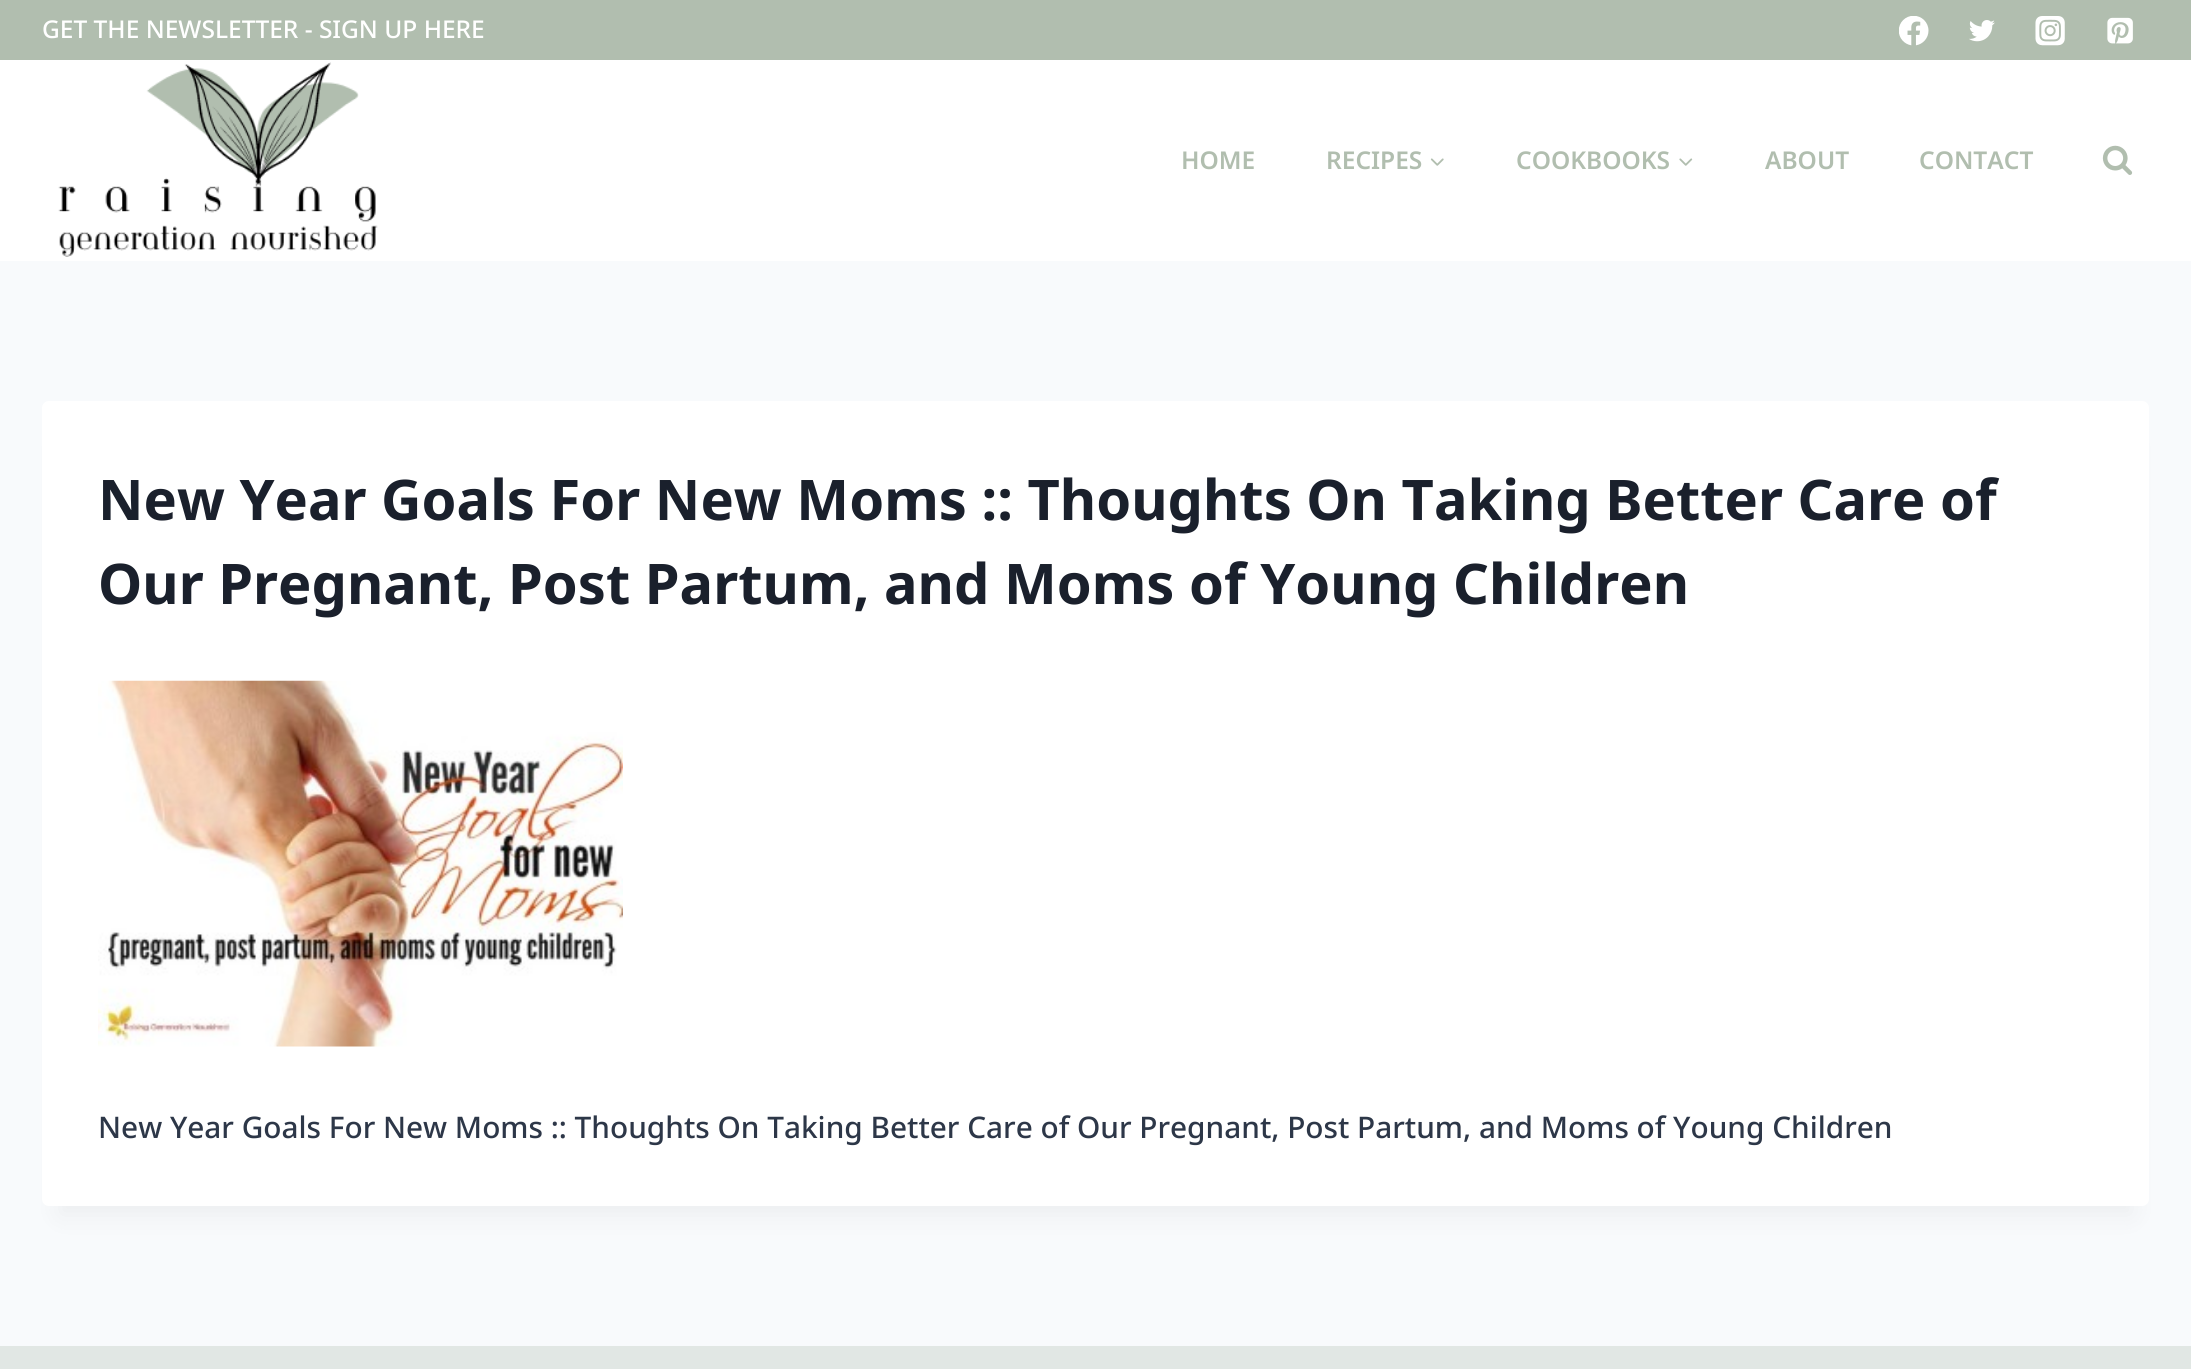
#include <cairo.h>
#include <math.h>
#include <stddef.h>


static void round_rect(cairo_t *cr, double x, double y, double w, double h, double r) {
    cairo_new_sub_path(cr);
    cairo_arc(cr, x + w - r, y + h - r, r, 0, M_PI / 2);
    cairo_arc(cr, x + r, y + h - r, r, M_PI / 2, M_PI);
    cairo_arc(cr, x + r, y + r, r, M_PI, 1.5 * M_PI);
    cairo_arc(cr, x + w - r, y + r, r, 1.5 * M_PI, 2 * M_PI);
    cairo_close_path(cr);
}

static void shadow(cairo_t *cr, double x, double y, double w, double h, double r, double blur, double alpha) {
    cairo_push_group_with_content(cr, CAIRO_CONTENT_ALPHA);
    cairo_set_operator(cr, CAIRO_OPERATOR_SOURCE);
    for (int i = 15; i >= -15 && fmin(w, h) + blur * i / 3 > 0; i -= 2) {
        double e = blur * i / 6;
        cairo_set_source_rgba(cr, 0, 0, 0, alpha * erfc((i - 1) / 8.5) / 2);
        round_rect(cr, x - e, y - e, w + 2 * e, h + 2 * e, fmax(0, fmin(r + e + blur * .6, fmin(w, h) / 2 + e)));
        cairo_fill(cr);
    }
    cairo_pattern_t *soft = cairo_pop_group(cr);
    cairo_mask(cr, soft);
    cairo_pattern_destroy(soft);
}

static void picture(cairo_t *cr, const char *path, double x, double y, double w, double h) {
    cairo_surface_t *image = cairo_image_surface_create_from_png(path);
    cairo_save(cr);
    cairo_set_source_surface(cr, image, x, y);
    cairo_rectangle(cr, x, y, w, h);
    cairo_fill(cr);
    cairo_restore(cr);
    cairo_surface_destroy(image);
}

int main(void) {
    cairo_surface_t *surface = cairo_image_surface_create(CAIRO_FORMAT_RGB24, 2191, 1369);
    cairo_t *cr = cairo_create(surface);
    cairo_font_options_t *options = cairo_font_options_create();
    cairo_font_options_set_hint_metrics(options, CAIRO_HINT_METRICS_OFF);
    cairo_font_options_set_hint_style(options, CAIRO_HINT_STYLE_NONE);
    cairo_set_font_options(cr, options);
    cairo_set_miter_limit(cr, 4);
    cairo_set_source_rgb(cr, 0.969, 0.98, 0.988);
    cairo_paint(cr);
    cairo_set_source_rgb(cr, 1, 1, 1);
    cairo_rectangle(cr, 0, 60, 2191, 201);
    cairo_fill(cr);
    cairo_set_source_rgb(cr, 0.694, 0.745, 0.686);
    cairo_rectangle(cr, 0, 0, 2191, 60);
    cairo_fill(cr);
    cairo_select_font_face(cr, "Noto Sans Medium", CAIRO_FONT_SLANT_NORMAL, CAIRO_FONT_WEIGHT_NORMAL);
    cairo_set_font_size(cr, 24.5);
    cairo_set_source_rgb(cr, 1, 1, 1);
    cairo_move_to(cr, 42, 38);
    cairo_show_text(cr, "GET THE NEWSLETTER - SIGN UP HERE");
    picture(cr, "img1.png", 1899, 16, 30, 30);
    picture(cr, "img2.png", 1969, 20, 26, 22);
    picture(cr, "img3.png", 2035, 16, 30, 30);
    picture(cr, "img4.png", 2107, 17, 26, 27);
    picture(cr, "img5.png", 58, 62, 320, 195);
    cairo_select_font_face(cr, "Noto Sans SemiBold", CAIRO_FONT_SLANT_NORMAL, CAIRO_FONT_WEIGHT_NORMAL);
    cairo_set_source_rgb(cr, 0.694, 0.745, 0.686);
    cairo_move_to(cr, 1181, 169);
    cairo_show_text(cr, "HOME");
    cairo_move_to(cr, 1326, 169);
    cairo_show_text(cr, "RECIPES");
    picture(cr, "img6.png", 1430, 158, 14, 8);
    cairo_move_to(cr, 1516, 169);
    cairo_show_text(cr, "COOKBOOKS");
    picture(cr, "img7.png", 1679, 158, 14, 8);
    cairo_move_to(cr, 1765, 169);
    cairo_show_text(cr, "ABOUT");
    cairo_move_to(cr, 1919, 169);
    cairo_show_text(cr, "CONTACT");
    picture(cr, "img8.png", 2102, 145, 31, 30);
    cairo_set_source_rgb(cr, 0, 0, 0);
    shadow(cr, 60, 445, 2072, 770, 0, 13, 0.05);
    cairo_set_source_rgb(cr, 1, 1, 1);
    round_rect(cr, 42, 401, 2107, 805, 7);
    cairo_fill(cr);
    cairo_select_font_face(cr, "Noto Sans", CAIRO_FONT_SLANT_NORMAL, CAIRO_FONT_WEIGHT_BOLD);
    cairo_set_font_size(cr, 56);
    cairo_set_source_rgb(cr, 0.102, 0.125, 0.173);
    cairo_move_to(cr, 98, 520);
    cairo_show_text(cr, "New Year Goals For New Moms :: Thoughts On Taking Better Care of");
    cairo_move_to(cr, 98, 604);
    cairo_show_text(cr, "Our Pregnant, Post Partum, and Moms of Young Children");
    picture(cr, "img9.png", 98, 680, 525, 367);
    cairo_select_font_face(cr, "Noto Sans Medium", CAIRO_FONT_SLANT_NORMAL, CAIRO_FONT_WEIGHT_NORMAL);
    cairo_set_font_size(cr, 29.75);
    cairo_set_source_rgb(cr, 0.176, 0.216, 0.282);
    cairo_move_to(cr, 98, 1138);
    cairo_show_text(cr, "New Year Goals For New Moms :: Thoughts On Taking Better Care of Our Pregnant, Post Partum, and Moms of Young Children");
    cairo_set_source_rgb(cr, 0.882, 0.906, 0.894);
    cairo_rectangle(cr, 0, 1346, 2191, 23);
    cairo_fill(cr);
    cairo_surface_write_to_png(surface, "page.png");
    cairo_font_options_destroy(options);
    cairo_destroy(cr);
    cairo_surface_destroy(surface);
    return 0;
}
